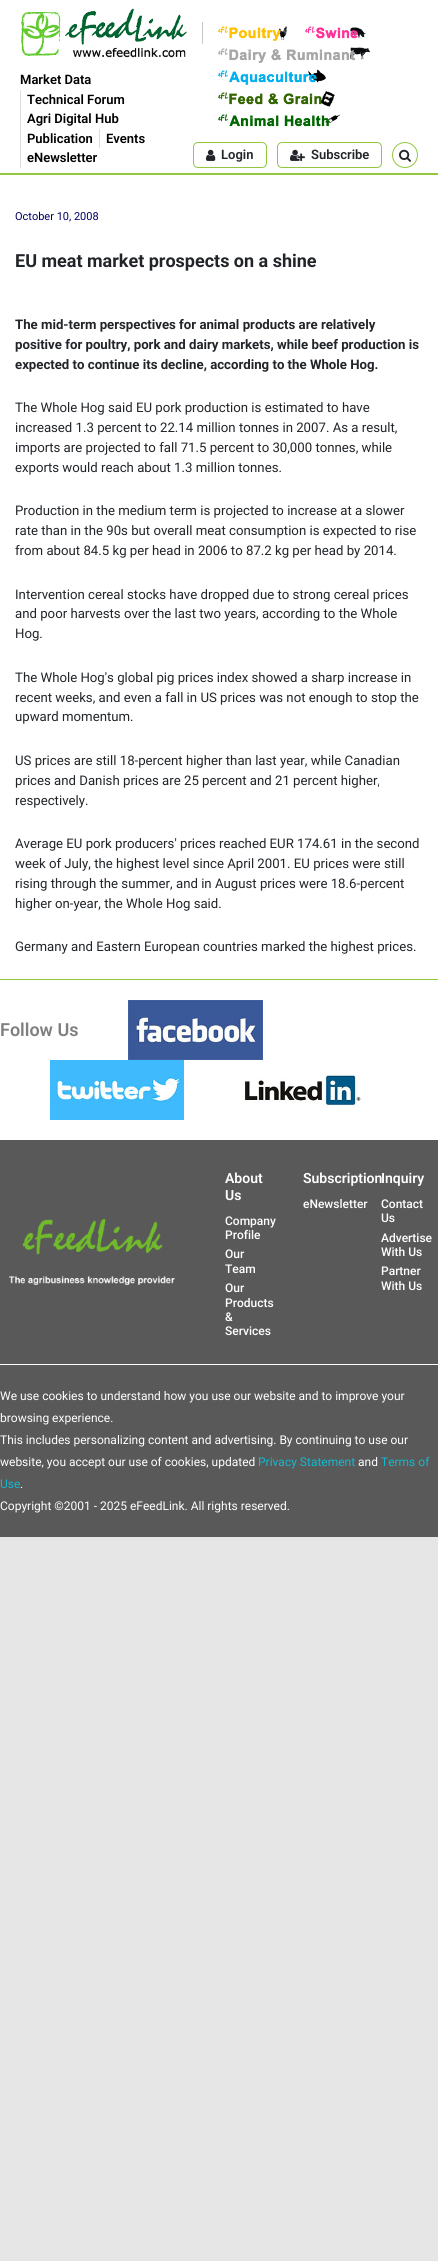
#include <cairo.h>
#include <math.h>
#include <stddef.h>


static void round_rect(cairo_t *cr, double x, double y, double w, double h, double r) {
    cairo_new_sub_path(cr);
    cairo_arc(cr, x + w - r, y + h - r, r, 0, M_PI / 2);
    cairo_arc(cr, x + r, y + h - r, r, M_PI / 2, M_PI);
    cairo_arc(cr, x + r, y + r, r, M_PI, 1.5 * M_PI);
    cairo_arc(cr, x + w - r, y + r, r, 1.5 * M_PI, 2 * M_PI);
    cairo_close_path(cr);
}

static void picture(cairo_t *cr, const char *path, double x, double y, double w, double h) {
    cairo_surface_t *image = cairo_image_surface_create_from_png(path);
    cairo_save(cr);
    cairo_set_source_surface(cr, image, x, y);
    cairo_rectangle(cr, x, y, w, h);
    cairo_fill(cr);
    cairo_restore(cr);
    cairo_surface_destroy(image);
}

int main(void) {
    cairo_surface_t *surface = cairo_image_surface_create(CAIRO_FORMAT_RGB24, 438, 2261);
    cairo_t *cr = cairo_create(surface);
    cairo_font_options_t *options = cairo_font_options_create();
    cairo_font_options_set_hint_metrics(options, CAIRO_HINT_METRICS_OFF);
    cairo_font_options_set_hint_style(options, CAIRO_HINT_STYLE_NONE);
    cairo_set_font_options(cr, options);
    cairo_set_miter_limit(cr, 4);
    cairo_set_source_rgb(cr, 0.902, 0.902, 0.902);
    cairo_paint(cr);
    cairo_set_source_rgb(cr, 1, 1, 1);
    cairo_rectangle(cr, 0, 0, 438, 173);
    cairo_fill(cr);
    picture(cr, "img1.png", 21, 8, 166, 50);
    cairo_set_source_rgb(cr, 0.776, 0.784, 0.792);
    cairo_rectangle(cr, 202, 22, 1, 22);
    cairo_fill(cr);
    picture(cr, "img2.png", 218, 26, 69, 15);
    picture(cr, "img3.png", 305, 26, 61, 13);
    picture(cr, "img4.png", 218, 47, 152, 16);
    picture(cr, "img5.png", 218, 69, 108, 16);
    picture(cr, "img6.png", 218, 91, 117, 16);
    picture(cr, "img7.png", 218, 114, 122, 13);
    cairo_set_source_rgb(cr, 0.573, 0.784, 0.243);
    cairo_rectangle(cr, 0, 173, 438, 2);
    cairo_fill(cr);
    cairo_select_font_face(cr, "Roboto SemiBold", CAIRO_FONT_SLANT_NORMAL, CAIRO_FONT_WEIGHT_NORMAL);
    cairo_set_font_size(cr, 13);
    cairo_set_source_rgb(cr, 0, 0, 0);
    cairo_move_to(cr, 20, 84);
    cairo_show_text(cr, "Market Data");
    cairo_set_source_rgb(cr, 0.871, 0.871, 0.871);
    cairo_rectangle(cr, 20, 90, 1, 78);
    cairo_fill(cr);
    cairo_set_source_rgb(cr, 0, 0, 0);
    cairo_move_to(cr, 27, 104);
    cairo_show_text(cr, "Technical Forum");
    cairo_move_to(cr, 27, 123);
    cairo_show_text(cr, "Agri Digital Hub");
    cairo_move_to(cr, 27, 143);
    cairo_show_text(cr, "Publication");
    cairo_set_source_rgb(cr, 0.871, 0.871, 0.871);
    cairo_rectangle(cr, 99, 129, 1, 19);
    cairo_fill(cr);
    cairo_set_source_rgb(cr, 0, 0, 0);
    cairo_move_to(cr, 106, 143);
    cairo_show_text(cr, "Events");
    cairo_move_to(cr, 27, 162);
    cairo_show_text(cr, "eNewsletter");
    round_rect(cr, 193.5, 142.5, 73, 25, 4.5);
    cairo_set_source_rgb(cr, 0.573, 0.784, 0.243);
    cairo_set_line_width(cr, 1);
    cairo_stroke(cr);
    picture(cr, "img8.png", 206, 149, 10, 12);
    cairo_set_source_rgb(cr, 0.129, 0.145, 0.161);
    cairo_move_to(cr, 221, 159);
    cairo_show_text(cr, "Login");
    round_rect(cr, 277.5, 142.5, 104, 25, 4.5);
    cairo_set_source_rgb(cr, 0.573, 0.784, 0.243);
    cairo_stroke(cr);
    picture(cr, "img9.png", 290, 149, 15, 12);
    cairo_set_source_rgb(cr, 0.129, 0.145, 0.161);
    cairo_move_to(cr, 311, 159);
    cairo_show_text(cr, "Subscribe");
    cairo_new_path(cr);
    cairo_arc(cr, 405, 155, 12.5, 0, 2 * M_PI);
    cairo_set_source_rgb(cr, 0.573, 0.784, 0.243);
    cairo_stroke(cr);
    picture(cr, "img10.png", 399, 149, 12, 13);
    cairo_set_source_rgb(cr, 1, 1, 1);
    cairo_rectangle(cr, 0, 175, 438, 804);
    cairo_fill(cr);
    cairo_set_source_rgb(cr, 0.573, 0.784, 0.243);
    cairo_rectangle(cr, 0, 979, 438, 1);
    cairo_fill(cr);
    cairo_select_font_face(cr, "Roboto", CAIRO_FONT_SLANT_NORMAL, CAIRO_FONT_WEIGHT_NORMAL);
    cairo_set_font_size(cr, 11);
    cairo_set_source_rgb(cr, 0, 0, 0.4);
    cairo_move_to(cr, 15, 220);
    cairo_show_text(cr, "October 10, 2008");
    cairo_select_font_face(cr, "Roboto", CAIRO_FONT_SLANT_NORMAL, CAIRO_FONT_WEIGHT_BOLD);
    cairo_set_font_size(cr, 18);
    cairo_set_source_rgb(cr, 0.129, 0.145, 0.161);
    cairo_move_to(cr, 15, 267);
    cairo_show_text(cr, "EU meat market prospects on a shine");
    cairo_set_font_size(cr, 13.2);
    cairo_move_to(cr, 15, 329);
    cairo_show_text(cr, "The mid-term perspectives for animal products are relatively");
    cairo_move_to(cr, 15, 349);
    cairo_show_text(cr, "positive for poultry, pork and dairy markets, while beef production is");
    cairo_move_to(cr, 15, 369);
    cairo_show_text(cr, "expected to continue its decline, according to the Whole Hog.");
    cairo_select_font_face(cr, "Roboto", CAIRO_FONT_SLANT_NORMAL, CAIRO_FONT_WEIGHT_NORMAL);
    cairo_move_to(cr, 15, 412);
    cairo_show_text(cr, "The Whole Hog said EU pork production is estimated to have");
    cairo_move_to(cr, 15, 432);
    cairo_show_text(cr, "increased 1.3 percent to 22.14 million tonnes in 2007. As a result,");
    cairo_move_to(cr, 15, 452);
    cairo_show_text(cr, "imports are projected to fall 71.5 percent to 30,000 tonnes, while");
    cairo_move_to(cr, 15, 472);
    cairo_show_text(cr, "exports would reach about 1.3 million tonnes.");
    cairo_move_to(cr, 15, 515);
    cairo_show_text(cr, "Production in the medium term is projected to increase at a slower");
    cairo_move_to(cr, 15, 535);
    cairo_show_text(cr, "rate than in the 90s but overall meat consumption is expected to rise");
    cairo_move_to(cr, 15, 555);
    cairo_show_text(cr, "from about 84.5 kg per head in 2006 to 87.2 kg per head by 2014.");
    cairo_move_to(cr, 15, 599);
    cairo_show_text(cr, "Intervention cereal stocks have dropped due to strong cereal prices");
    cairo_move_to(cr, 15, 618);
    cairo_show_text(cr, "and poor harvests over the last two years, according to the Whole");
    cairo_move_to(cr, 15, 638);
    cairo_show_text(cr, "Hog.");
    cairo_move_to(cr, 15, 682);
    cairo_show_text(cr, "The Whole Hog's global pig prices index showed a sharp increase in");
    cairo_move_to(cr, 15, 702);
    cairo_show_text(cr, "recent weeks, and even a fall in US prices was not enough to stop the");
    cairo_move_to(cr, 15, 721);
    cairo_show_text(cr, "upward momentum.");
    cairo_move_to(cr, 15, 765);
    cairo_show_text(cr, "US prices are still 18-percent higher than last year, while Canadian");
    cairo_move_to(cr, 15, 785);
    cairo_show_text(cr, "prices and Danish prices are 25 percent and 21 percent higher,");
    cairo_move_to(cr, 15, 805);
    cairo_show_text(cr, "respectively.");
    cairo_move_to(cr, 15, 848);
    cairo_show_text(cr, "Average EU pork producers' prices reached EUR 174.61 in the second");
    cairo_move_to(cr, 15, 868);
    cairo_show_text(cr, "week of July, the highest level since April 2001. EU prices were still");
    cairo_move_to(cr, 15, 888);
    cairo_show_text(cr, "rising through the summer, and in August prices were 18.6-percent");
    cairo_move_to(cr, 15, 908);
    cairo_show_text(cr, "higher on-year, the Whole Hog said.");
    cairo_move_to(cr, 15, 951);
    cairo_show_text(cr, "Germany and Eastern European countries marked the highest prices.");
    cairo_set_source_rgb(cr, 1, 1, 1);
    cairo_rectangle(cr, 0, 980, 438, 160);
    cairo_fill(cr);
    cairo_select_font_face(cr, "Roboto SemiBold", CAIRO_FONT_SLANT_NORMAL, CAIRO_FONT_WEIGHT_NORMAL);
    cairo_set_font_size(cr, 18);
    cairo_set_source_rgb(cr, 0.498, 0.498, 0.498);
    cairo_move_to(cr, 0, 1036);
    cairo_show_text(cr, "Follow Us");
    picture(cr, "img11.png", 128, 1000, 135, 60);
    picture(cr, "img12.png", 50, 1060, 134, 60);
    picture(cr, "img13.png", 244, 1074, 117, 34);
    cairo_set_source_rgb(cr, 0.349, 0.349, 0.349);
    cairo_rectangle(cr, 0, 1140, 438, 397);
    cairo_fill(cr);
    picture(cr, "img14.png", 9, 1219, 166, 66);
    cairo_set_font_size(cr, 14);
    cairo_set_source_rgb(cr, 1, 1, 1);
    cairo_move_to(cr, 225, 1183);
    cairo_show_text(cr, "About");
    cairo_move_to(cr, 225, 1200);
    cairo_show_text(cr, "Us");
    cairo_select_font_face(cr, "Roboto Medium", CAIRO_FONT_SLANT_NORMAL, CAIRO_FONT_WEIGHT_NORMAL);
    cairo_set_font_size(cr, 12);
    cairo_move_to(cr, 225, 1225);
    cairo_show_text(cr, "Company");
    cairo_move_to(cr, 225, 1239);
    cairo_show_text(cr, "Profile");
    cairo_move_to(cr, 225, 1258);
    cairo_show_text(cr, "Our");
    cairo_move_to(cr, 225, 1273);
    cairo_show_text(cr, "Team");
    cairo_move_to(cr, 225, 1292);
    cairo_show_text(cr, "Our");
    cairo_move_to(cr, 225, 1307);
    cairo_show_text(cr, "Products");
    cairo_move_to(cr, 225, 1321);
    cairo_show_text(cr, "&");
    cairo_move_to(cr, 225, 1335);
    cairo_show_text(cr, "Services");
    cairo_select_font_face(cr, "Roboto SemiBold", CAIRO_FONT_SLANT_NORMAL, CAIRO_FONT_WEIGHT_NORMAL);
    cairo_set_font_size(cr, 14);
    cairo_move_to(cr, 303, 1183);
    cairo_show_text(cr, "Subscription");
    cairo_select_font_face(cr, "Roboto Medium", CAIRO_FONT_SLANT_NORMAL, CAIRO_FONT_WEIGHT_NORMAL);
    cairo_set_font_size(cr, 12);
    cairo_move_to(cr, 303, 1208);
    cairo_show_text(cr, "eNewsletter");
    cairo_select_font_face(cr, "Roboto SemiBold", CAIRO_FONT_SLANT_NORMAL, CAIRO_FONT_WEIGHT_NORMAL);
    cairo_set_font_size(cr, 14);
    cairo_move_to(cr, 381, 1183);
    cairo_show_text(cr, "Inquiry");
    cairo_select_font_face(cr, "Roboto Medium", CAIRO_FONT_SLANT_NORMAL, CAIRO_FONT_WEIGHT_NORMAL);
    cairo_set_font_size(cr, 12);
    cairo_move_to(cr, 381, 1208);
    cairo_show_text(cr, "Contact");
    cairo_move_to(cr, 381, 1222);
    cairo_show_text(cr, "Us");
    cairo_move_to(cr, 381, 1242);
    cairo_show_text(cr, "Advertise");
    cairo_move_to(cr, 381, 1256);
    cairo_show_text(cr, "With Us");
    cairo_move_to(cr, 381, 1275);
    cairo_show_text(cr, "Partner");
    cairo_move_to(cr, 381, 1290);
    cairo_show_text(cr, "With Us");
    cairo_rectangle(cr, 0, 1364, 438, 1);
    cairo_fill(cr);
    cairo_select_font_face(cr, "Roboto", CAIRO_FONT_SLANT_NORMAL, CAIRO_FONT_WEIGHT_NORMAL);
    cairo_move_to(cr, 0, 1400);
    cairo_show_text(cr, "We use cookies to understand how you use our website and to improve your");
    cairo_move_to(cr, 0, 1422);
    cairo_show_text(cr, "browsing experience.");
    cairo_move_to(cr, 0, 1444);
    cairo_show_text(cr, "This includes personalizing content and advertising. By continuing to use our");
    cairo_move_to(cr, 0, 1466);
    cairo_show_text(cr, "website, you accept our use of cookies, updated");
    cairo_set_source_rgb(cr, 0.082, 0.722, 0.812);
    cairo_move_to(cr, 258, 1466);
    cairo_show_text(cr, "Privacy Statement");
    cairo_set_source_rgb(cr, 1, 1, 1);
    cairo_move_to(cr, 358, 1466);
    cairo_show_text(cr, "and");
    cairo_set_source_rgb(cr, 0.082, 0.722, 0.812);
    cairo_move_to(cr, 381, 1466);
    cairo_show_text(cr, "Terms of");
    cairo_move_to(cr, 0, 1488);
    cairo_show_text(cr, "Use");
    cairo_set_source_rgb(cr, 1, 1, 1);
    cairo_move_to(cr, 20, 1488);
    cairo_show_text(cr, ".");
    cairo_move_to(cr, 0, 1510);
    cairo_show_text(cr, "Copyright ©2001 - 2025 eFeedLink. All rights reserved.");
    cairo_surface_write_to_png(surface, "page.png");
    cairo_font_options_destroy(options);
    cairo_destroy(cr);
    cairo_surface_destroy(surface);
    return 0;
}
